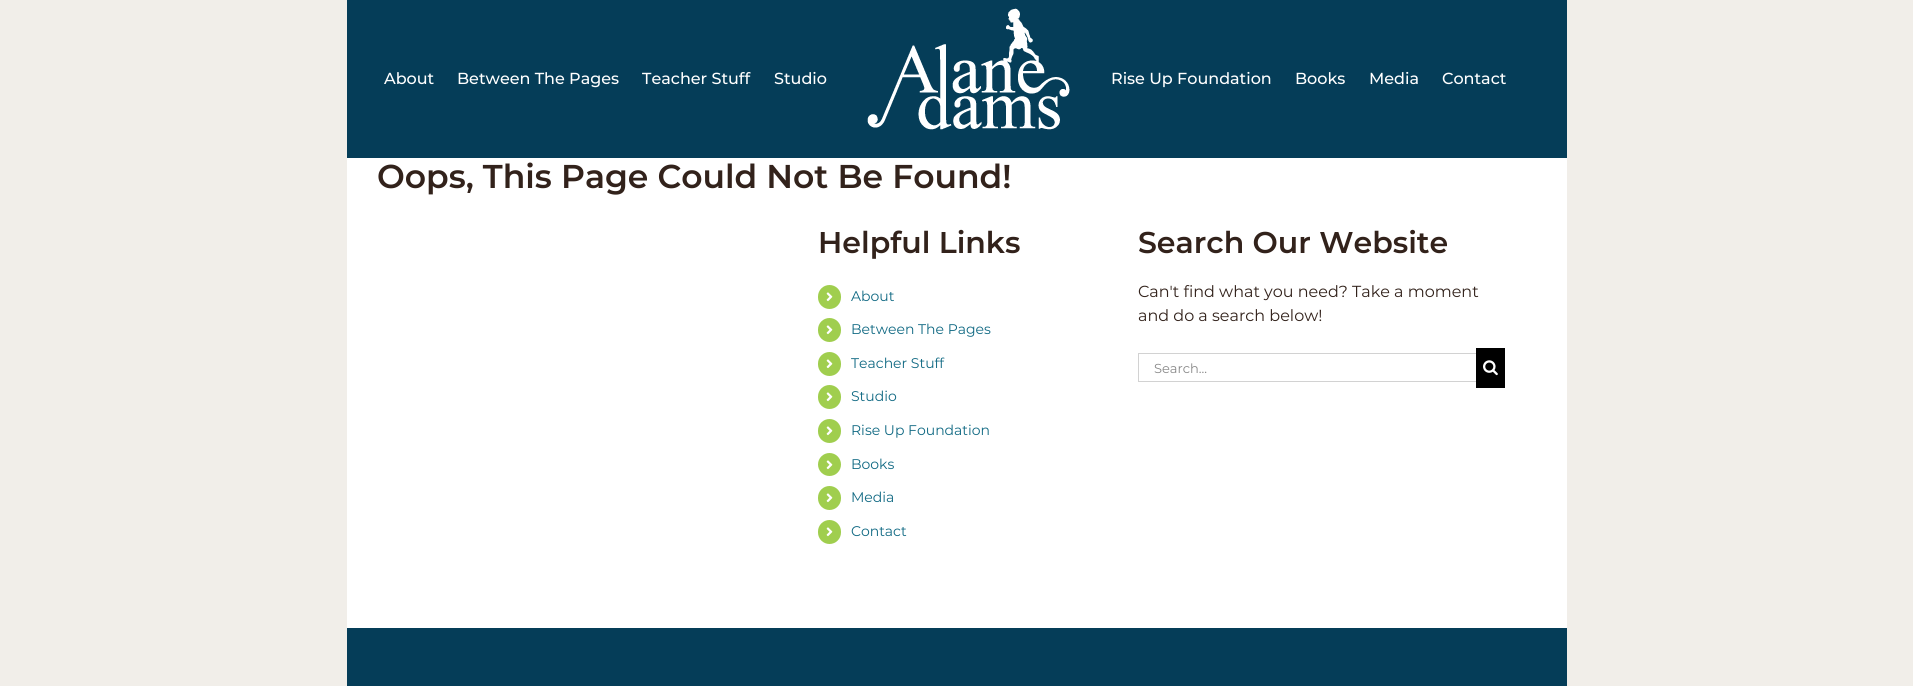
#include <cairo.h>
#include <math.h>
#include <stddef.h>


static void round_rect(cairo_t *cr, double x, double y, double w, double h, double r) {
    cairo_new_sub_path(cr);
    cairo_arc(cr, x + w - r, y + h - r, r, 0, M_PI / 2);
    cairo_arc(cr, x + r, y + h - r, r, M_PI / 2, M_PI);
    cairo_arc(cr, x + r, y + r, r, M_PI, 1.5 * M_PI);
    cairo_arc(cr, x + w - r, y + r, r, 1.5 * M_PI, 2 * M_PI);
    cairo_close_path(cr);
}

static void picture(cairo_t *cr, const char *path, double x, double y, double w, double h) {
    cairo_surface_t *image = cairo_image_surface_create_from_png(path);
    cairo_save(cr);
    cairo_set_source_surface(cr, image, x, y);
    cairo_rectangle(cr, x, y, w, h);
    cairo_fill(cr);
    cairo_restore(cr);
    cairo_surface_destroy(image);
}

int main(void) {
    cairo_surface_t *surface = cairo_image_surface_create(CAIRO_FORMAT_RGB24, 1913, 686);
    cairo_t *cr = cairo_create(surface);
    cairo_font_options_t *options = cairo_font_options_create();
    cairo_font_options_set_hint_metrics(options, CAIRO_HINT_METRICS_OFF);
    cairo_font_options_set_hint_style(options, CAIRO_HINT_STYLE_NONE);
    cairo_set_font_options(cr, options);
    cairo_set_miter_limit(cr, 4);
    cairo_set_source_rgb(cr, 0.945, 0.933, 0.914);
    cairo_paint(cr);
    cairo_set_source_rgb(cr, 0.02, 0.239, 0.345);
    cairo_rectangle(cr, 347, 0, 1220, 158);
    cairo_fill(cr);
    cairo_select_font_face(cr, "Montserrat Medium", CAIRO_FONT_SLANT_NORMAL, CAIRO_FONT_WEIGHT_NORMAL);
    cairo_set_font_size(cr, 16);
    cairo_set_source_rgb(cr, 1, 1, 1);
    cairo_move_to(cr, 384, 84);
    cairo_show_text(cr, "About");
    cairo_move_to(cr, 457, 84);
    cairo_show_text(cr, "Between The Pages");
    cairo_move_to(cr, 642, 84);
    cairo_show_text(cr, "Teacher Stuff");
    cairo_move_to(cr, 774, 84);
    cairo_show_text(cr, "Studio");
    picture(cr, "img1.png", 867, 8, 203, 122);
    cairo_move_to(cr, 1111, 84);
    cairo_show_text(cr, "Rise Up Foundation");
    cairo_move_to(cr, 1295, 84);
    cairo_show_text(cr, "Books");
    cairo_move_to(cr, 1369, 84);
    cairo_show_text(cr, "Media");
    cairo_move_to(cr, 1442, 84);
    cairo_show_text(cr, "Contact");
    cairo_rectangle(cr, 347, 158, 1220, 470);
    cairo_fill(cr);
    cairo_select_font_face(cr, "Montserrat SemiBold", CAIRO_FONT_SLANT_NORMAL, CAIRO_FONT_WEIGHT_NORMAL);
    cairo_set_font_size(cr, 33);
    cairo_set_source_rgb(cr, 0.196, 0.133, 0.106);
    cairo_move_to(cr, 377, 188);
    cairo_show_text(cr, "Oops, This Page Could Not Be Found!");
    cairo_set_font_size(cr, 30);
    cairo_move_to(cr, 818, 253);
    cairo_show_text(cr, "Helpful Links");
    cairo_set_source_rgb(cr, 0.627, 0.808, 0.306);
    round_rect(cr, 818, 285, 23, 24, 11.5);
    cairo_fill(cr);
    picture(cr, "img2.png", 826, 292, 7, 10);
    cairo_select_font_face(cr, "Montserrat", CAIRO_FONT_SLANT_NORMAL, CAIRO_FONT_WEIGHT_NORMAL);
    cairo_set_font_size(cr, 14);
    cairo_set_source_rgb(cr, 0.063, 0.412, 0.514);
    cairo_move_to(cr, 851, 301);
    cairo_show_text(cr, "About");
    cairo_set_source_rgb(cr, 0.627, 0.808, 0.306);
    round_rect(cr, 818, 318, 23, 24, 11.5);
    cairo_fill(cr);
    picture(cr, "img2.png", 826, 325, 7, 10);
    cairo_set_source_rgb(cr, 0.063, 0.412, 0.514);
    cairo_move_to(cr, 851, 334);
    cairo_show_text(cr, "Between The Pages");
    cairo_set_source_rgb(cr, 0.627, 0.808, 0.306);
    round_rect(cr, 818, 352, 23, 24, 11.5);
    cairo_fill(cr);
    picture(cr, "img2.png", 826, 359, 7, 10);
    cairo_set_source_rgb(cr, 0.063, 0.412, 0.514);
    cairo_move_to(cr, 851, 368);
    cairo_show_text(cr, "Teacher Stuff");
    cairo_set_source_rgb(cr, 0.627, 0.808, 0.306);
    round_rect(cr, 818, 385, 23, 24, 11.5);
    cairo_fill(cr);
    picture(cr, "img2.png", 826, 392, 7, 10);
    cairo_set_source_rgb(cr, 0.063, 0.412, 0.514);
    cairo_move_to(cr, 851, 401);
    cairo_show_text(cr, "Studio");
    cairo_set_source_rgb(cr, 0.627, 0.808, 0.306);
    round_rect(cr, 818, 419, 23, 24, 11.5);
    cairo_fill(cr);
    picture(cr, "img2.png", 826, 426, 7, 10);
    cairo_set_source_rgb(cr, 0.063, 0.412, 0.514);
    cairo_move_to(cr, 851, 435);
    cairo_show_text(cr, "Rise Up Foundation");
    cairo_set_source_rgb(cr, 0.627, 0.808, 0.306);
    cairo_new_path(cr);
    cairo_arc(cr, 829.5, 464.5, 11.5, 0, 2 * M_PI);
    cairo_fill(cr);
    picture(cr, "img2.png", 826, 460, 7, 10);
    cairo_set_source_rgb(cr, 0.063, 0.412, 0.514);
    cairo_move_to(cr, 851, 469);
    cairo_show_text(cr, "Books");
    cairo_set_source_rgb(cr, 0.627, 0.808, 0.306);
    round_rect(cr, 818, 486, 23, 24, 11.5);
    cairo_fill(cr);
    picture(cr, "img2.png", 826, 493, 7, 10);
    cairo_set_source_rgb(cr, 0.063, 0.412, 0.514);
    cairo_move_to(cr, 851, 502);
    cairo_show_text(cr, "Media");
    cairo_set_source_rgb(cr, 0.627, 0.808, 0.306);
    round_rect(cr, 818, 520, 23, 24, 11.5);
    cairo_fill(cr);
    picture(cr, "img2.png", 826, 527, 7, 10);
    cairo_set_source_rgb(cr, 0.063, 0.412, 0.514);
    cairo_move_to(cr, 851, 536);
    cairo_show_text(cr, "Contact");
    cairo_select_font_face(cr, "Montserrat SemiBold", CAIRO_FONT_SLANT_NORMAL, CAIRO_FONT_WEIGHT_NORMAL);
    cairo_set_font_size(cr, 30);
    cairo_set_source_rgb(cr, 0.196, 0.133, 0.106);
    cairo_move_to(cr, 1138, 253);
    cairo_show_text(cr, "Search Our Website");
    cairo_select_font_face(cr, "Montserrat", CAIRO_FONT_SLANT_NORMAL, CAIRO_FONT_WEIGHT_NORMAL);
    cairo_set_font_size(cr, 16);
    cairo_move_to(cr, 1138, 297);
    cairo_show_text(cr, "Can't find what you need? Take a moment");
    cairo_move_to(cr, 1138, 321);
    cairo_show_text(cr, "and do a search below!");
    cairo_set_source_rgb(cr, 0.824, 0.824, 0.824);
    cairo_rectangle(cr, 1138, 353, 338, 1);
    cairo_fill(cr);
    cairo_rectangle(cr, 1138, 381, 338, 1);
    cairo_fill(cr);
    cairo_rectangle(cr, 1138, 353, 1, 29);
    cairo_fill(cr);
    cairo_set_font_size(cr, 13);
    cairo_set_source_rgb(cr, 0.533, 0.533, 0.533);
    cairo_move_to(cr, 1154, 373);
    cairo_show_text(cr, "Search...");
    cairo_set_source_rgb(cr, 0, 0, 0);
    cairo_rectangle(cr, 1476, 348, 29, 40);
    cairo_fill(cr);
    picture(cr, "img3.png", 1483, 360, 15, 16);
    cairo_set_source_rgb(cr, 0.02, 0.239, 0.345);
    cairo_rectangle(cr, 347, 628, 1220, 58);
    cairo_fill(cr);
    cairo_surface_write_to_png(surface, "page.png");
    cairo_font_options_destroy(options);
    cairo_destroy(cr);
    cairo_surface_destroy(surface);
    return 0;
}
